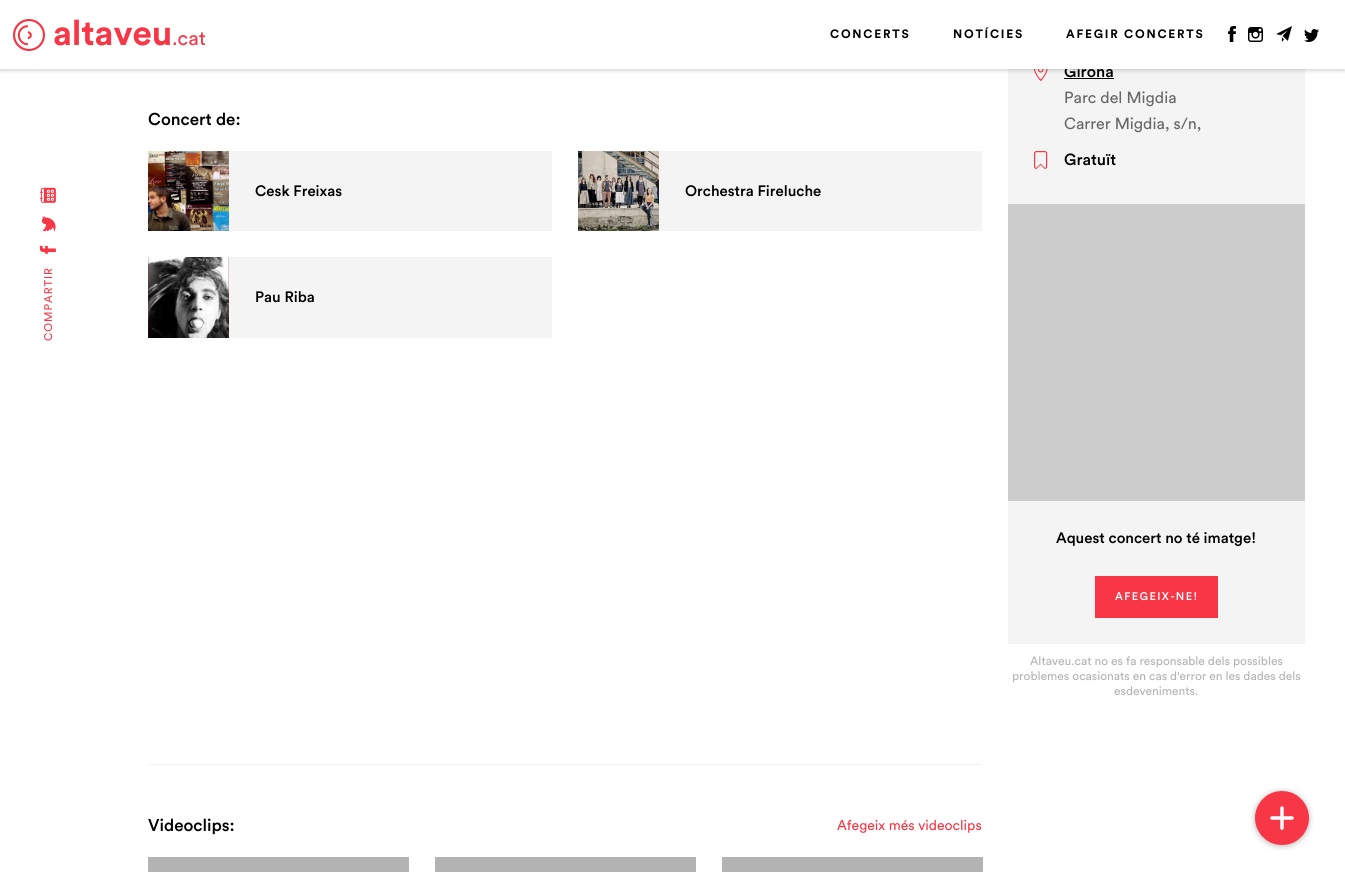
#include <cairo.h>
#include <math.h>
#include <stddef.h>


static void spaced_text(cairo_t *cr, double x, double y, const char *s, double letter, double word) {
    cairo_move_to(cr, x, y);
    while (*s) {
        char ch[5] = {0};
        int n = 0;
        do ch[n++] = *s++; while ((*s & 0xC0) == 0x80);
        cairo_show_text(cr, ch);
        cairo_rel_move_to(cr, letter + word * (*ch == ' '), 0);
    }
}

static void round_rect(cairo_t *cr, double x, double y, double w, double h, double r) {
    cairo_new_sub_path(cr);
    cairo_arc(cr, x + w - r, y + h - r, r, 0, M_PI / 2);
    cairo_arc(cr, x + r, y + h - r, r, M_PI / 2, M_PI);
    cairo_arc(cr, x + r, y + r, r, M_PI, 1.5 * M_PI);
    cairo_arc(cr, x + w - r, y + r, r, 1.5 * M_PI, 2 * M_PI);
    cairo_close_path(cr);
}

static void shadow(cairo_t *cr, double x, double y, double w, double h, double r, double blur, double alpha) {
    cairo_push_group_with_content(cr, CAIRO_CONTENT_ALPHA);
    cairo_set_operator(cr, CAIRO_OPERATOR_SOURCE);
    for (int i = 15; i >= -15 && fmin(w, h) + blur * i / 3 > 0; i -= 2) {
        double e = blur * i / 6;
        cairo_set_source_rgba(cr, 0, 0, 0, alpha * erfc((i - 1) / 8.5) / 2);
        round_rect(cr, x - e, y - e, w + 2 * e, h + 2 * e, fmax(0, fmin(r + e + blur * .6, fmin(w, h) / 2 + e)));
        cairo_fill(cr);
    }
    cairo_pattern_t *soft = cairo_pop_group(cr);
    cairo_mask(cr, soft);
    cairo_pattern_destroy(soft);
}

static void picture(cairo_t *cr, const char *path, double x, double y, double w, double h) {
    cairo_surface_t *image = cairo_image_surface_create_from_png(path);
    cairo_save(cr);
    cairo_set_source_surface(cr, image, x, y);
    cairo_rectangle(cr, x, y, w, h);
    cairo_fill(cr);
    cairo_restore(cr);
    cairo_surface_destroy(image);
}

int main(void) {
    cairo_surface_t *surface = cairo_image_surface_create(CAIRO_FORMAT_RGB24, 1345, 872);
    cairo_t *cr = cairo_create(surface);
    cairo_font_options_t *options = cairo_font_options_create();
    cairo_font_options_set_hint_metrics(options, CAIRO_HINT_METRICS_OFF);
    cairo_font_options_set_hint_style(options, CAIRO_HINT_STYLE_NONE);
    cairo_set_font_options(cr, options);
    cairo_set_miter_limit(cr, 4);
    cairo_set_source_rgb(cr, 1, 1, 1);
    cairo_paint(cr);
    cairo_set_source_rgb(cr, 0.957, 0.957, 0.957);
    cairo_rectangle(cr, 1008, 69, 297, 575);
    cairo_fill(cr);
    picture(cr, "img12.png", 1034, 69, 14, 12);
    cairo_set_source_rgb(cr, 0, 0, 0);
    shadow(cr, 0, 2, 1345, 69, 0, 2, 0.15);
    cairo_select_font_face(cr, "Circular Medium", CAIRO_FONT_SLANT_NORMAL, CAIRO_FONT_WEIGHT_NORMAL);
    cairo_set_font_size(cr, 16);
    cairo_set_source_rgb(cr, 0, 0, 0);
    cairo_move_to(cr, 1064, 77);
    cairo_show_text(cr, "Girona");
    cairo_set_source_rgb(cr, 1, 1, 1);
    cairo_rectangle(cr, 0, 0, 1345, 69);
    cairo_fill(cr);
    picture(cr, "img1.png", 13, 19, 32, 32);
    cairo_select_font_face(cr, "Circular", CAIRO_FONT_SLANT_NORMAL, CAIRO_FONT_WEIGHT_BOLD);
    cairo_set_font_size(cr, 35);
    cairo_set_source_rgb(cr, 0.969, 0.212, 0.275);
    cairo_move_to(cr, 53, 45);
    cairo_show_text(cr, "altaveu");
    cairo_select_font_face(cr, "Circular", CAIRO_FONT_SLANT_NORMAL, CAIRO_FONT_WEIGHT_NORMAL);
    cairo_set_font_size(cr, 20);
    cairo_move_to(cr, 172, 45);
    cairo_show_text(cr, ".cat");
    cairo_select_font_face(cr, "Circular", CAIRO_FONT_SLANT_NORMAL, CAIRO_FONT_WEIGHT_BOLD);
    cairo_set_font_size(cr, 12);
    cairo_set_source_rgb(cr, 0, 0, 0);
    spaced_text(cr, 830, 38, "CONCERTS", 1.75, 0);
    spaced_text(cr, 953, 38, "NOTÍCIES", 1.75, 0);
    spaced_text(cr, 1066, 38, "AFEGIR CONCERTS", 1.75, 0);
    picture(cr, "img2.png", 1228, 26, 8, 16);
    picture(cr, "img3.png", 1248, 27, 15, 15);
    picture(cr, "img4.png", 1276, 26, 16, 16);
    picture(cr, "img5.png", 1304, 29, 15, 13);
    picture(cr, "img6.png", 39, 187, 17, 16);
    picture(cr, "img7.png", 41, 216, 15, 16);
    picture(cr, "img8.png", 39, 245, 17, 9);
    cairo_select_font_face(cr, "Circular", CAIRO_FONT_SLANT_NORMAL, CAIRO_FONT_WEIGHT_NORMAL);
    cairo_set_font_size(cr, 11);
    cairo_set_source_rgb(cr, 0.969, 0.212, 0.275);
    cairo_save(cr);
    cairo_translate(cr, 52, 341);
    cairo_rotate(cr, -90 * M_PI / 180);
    spaced_text(cr, 0, 0, "COMPARTIR", 1, 0);
    cairo_restore(cr);
    cairo_select_font_face(cr, "Circular Medium", CAIRO_FONT_SLANT_NORMAL, CAIRO_FONT_WEIGHT_NORMAL);
    cairo_set_font_size(cr, 17);
    cairo_set_source_rgb(cr, 0, 0, 0);
    cairo_move_to(cr, 148, 125);
    cairo_show_text(cr, "Concert de:");
    cairo_set_source_rgb(cr, 0.957, 0.957, 0.957);
    cairo_rectangle(cr, 229, 151, 323, 80);
    cairo_fill(cr);
    picture(cr, "img9.png", 148, 151, 81, 80);
    cairo_set_font_size(cr, 15);
    cairo_set_source_rgb(cr, 0, 0, 0);
    cairo_move_to(cr, 255, 196);
    cairo_show_text(cr, "Cesk Freixas");
    cairo_set_source_rgb(cr, 0.957, 0.957, 0.957);
    cairo_rectangle(cr, 659, 151, 323, 80);
    cairo_fill(cr);
    picture(cr, "img10.png", 578, 151, 81, 80);
    cairo_set_source_rgb(cr, 0, 0, 0);
    cairo_move_to(cr, 685, 196);
    cairo_show_text(cr, "Orchestra Fireluche");
    cairo_set_source_rgb(cr, 0.957, 0.957, 0.957);
    cairo_rectangle(cr, 229, 257, 323, 81);
    cairo_fill(cr);
    picture(cr, "img11.png", 148, 257, 81, 81);
    cairo_set_source_rgb(cr, 0, 0, 0);
    cairo_move_to(cr, 255, 302);
    cairo_show_text(cr, "Pau Riba");
    cairo_set_source_rgb(cr, 0.949, 0.949, 0.949);
    cairo_rectangle(cr, 148, 764, 834, 1);
    cairo_fill(cr);
    cairo_set_font_size(cr, 17);
    cairo_set_source_rgb(cr, 0, 0, 0);
    cairo_move_to(cr, 148, 831);
    cairo_show_text(cr, "Videoclips:");
    cairo_select_font_face(cr, "Circular", CAIRO_FONT_SLANT_NORMAL, CAIRO_FONT_WEIGHT_NORMAL);
    cairo_set_font_size(cr, 14);
    cairo_set_source_rgb(cr, 0.969, 0.212, 0.275);
    cairo_move_to(cr, 837, 830);
    cairo_show_text(cr, "Afegeix més videoclips");
    cairo_set_source_rgb(cr, 0.702, 0.702, 0.702);
    cairo_rectangle(cr, 148, 857, 261, 15);
    cairo_fill(cr);
    cairo_rectangle(cr, 435, 857, 261, 15);
    cairo_fill(cr);
    cairo_rectangle(cr, 722, 857, 261, 15);
    cairo_fill(cr);
    cairo_set_source_rgb(cr, 0, 0, 0);
    cairo_rectangle(cr, 1064, 78, 50, 1);
    cairo_fill(cr);
    cairo_set_font_size(cr, 16);
    cairo_set_source_rgb(cr, 0.4, 0.4, 0.4);
    cairo_move_to(cr, 1064, 103);
    cairo_show_text(cr, "Parc del Migdia");
    cairo_move_to(cr, 1064, 129);
    cairo_show_text(cr, "Carrer Migdia, s/n,");
    picture(cr, "img13.png", 1034, 151, 14, 18);
    cairo_select_font_face(cr, "Circular Medium", CAIRO_FONT_SLANT_NORMAL, CAIRO_FONT_WEIGHT_NORMAL);
    cairo_set_source_rgb(cr, 0, 0, 0);
    cairo_move_to(cr, 1064, 165);
    cairo_show_text(cr, "Gratuït");
    cairo_set_source_rgb(cr, 0.8, 0.8, 0.8);
    cairo_rectangle(cr, 1008, 204, 297, 297);
    cairo_fill(cr);
    cairo_set_font_size(cr, 15);
    cairo_set_source_rgb(cr, 0, 0, 0);
    cairo_move_to(cr, 1056, 543);
    cairo_show_text(cr, "Aquest concert no té imatge!");
    cairo_set_source_rgb(cr, 0.969, 0.212, 0.275);
    cairo_rectangle(cr, 1095, 576, 123, 42);
    cairo_fill(cr);
    cairo_set_font_size(cr, 11);
    cairo_set_source_rgb(cr, 1, 1, 1);
    spaced_text(cr, 1115, 600, "AFEGEIX-NE!", 1.4, 0);
    cairo_select_font_face(cr, "Circular", CAIRO_FONT_SLANT_NORMAL, CAIRO_FONT_WEIGHT_NORMAL);
    cairo_set_font_size(cr, 12);
    cairo_set_source_rgb(cr, 0.702, 0.702, 0.702);
    cairo_move_to(cr, 1030, 665);
    cairo_show_text(cr, "Altaveu.cat no es fa responsable dels possibles");
    cairo_move_to(cr, 1012, 680);
    cairo_show_text(cr, "problemes ocasionats en cas d'error en les dades dels");
    cairo_move_to(cr, 1114, 695);
    cairo_show_text(cr, "esdeveniments.");
    picture(cr, "img14.png", 1251, 788, 62, 62);
    cairo_surface_write_to_png(surface, "page.png");
    cairo_font_options_destroy(options);
    cairo_destroy(cr);
    cairo_surface_destroy(surface);
    return 0;
}
